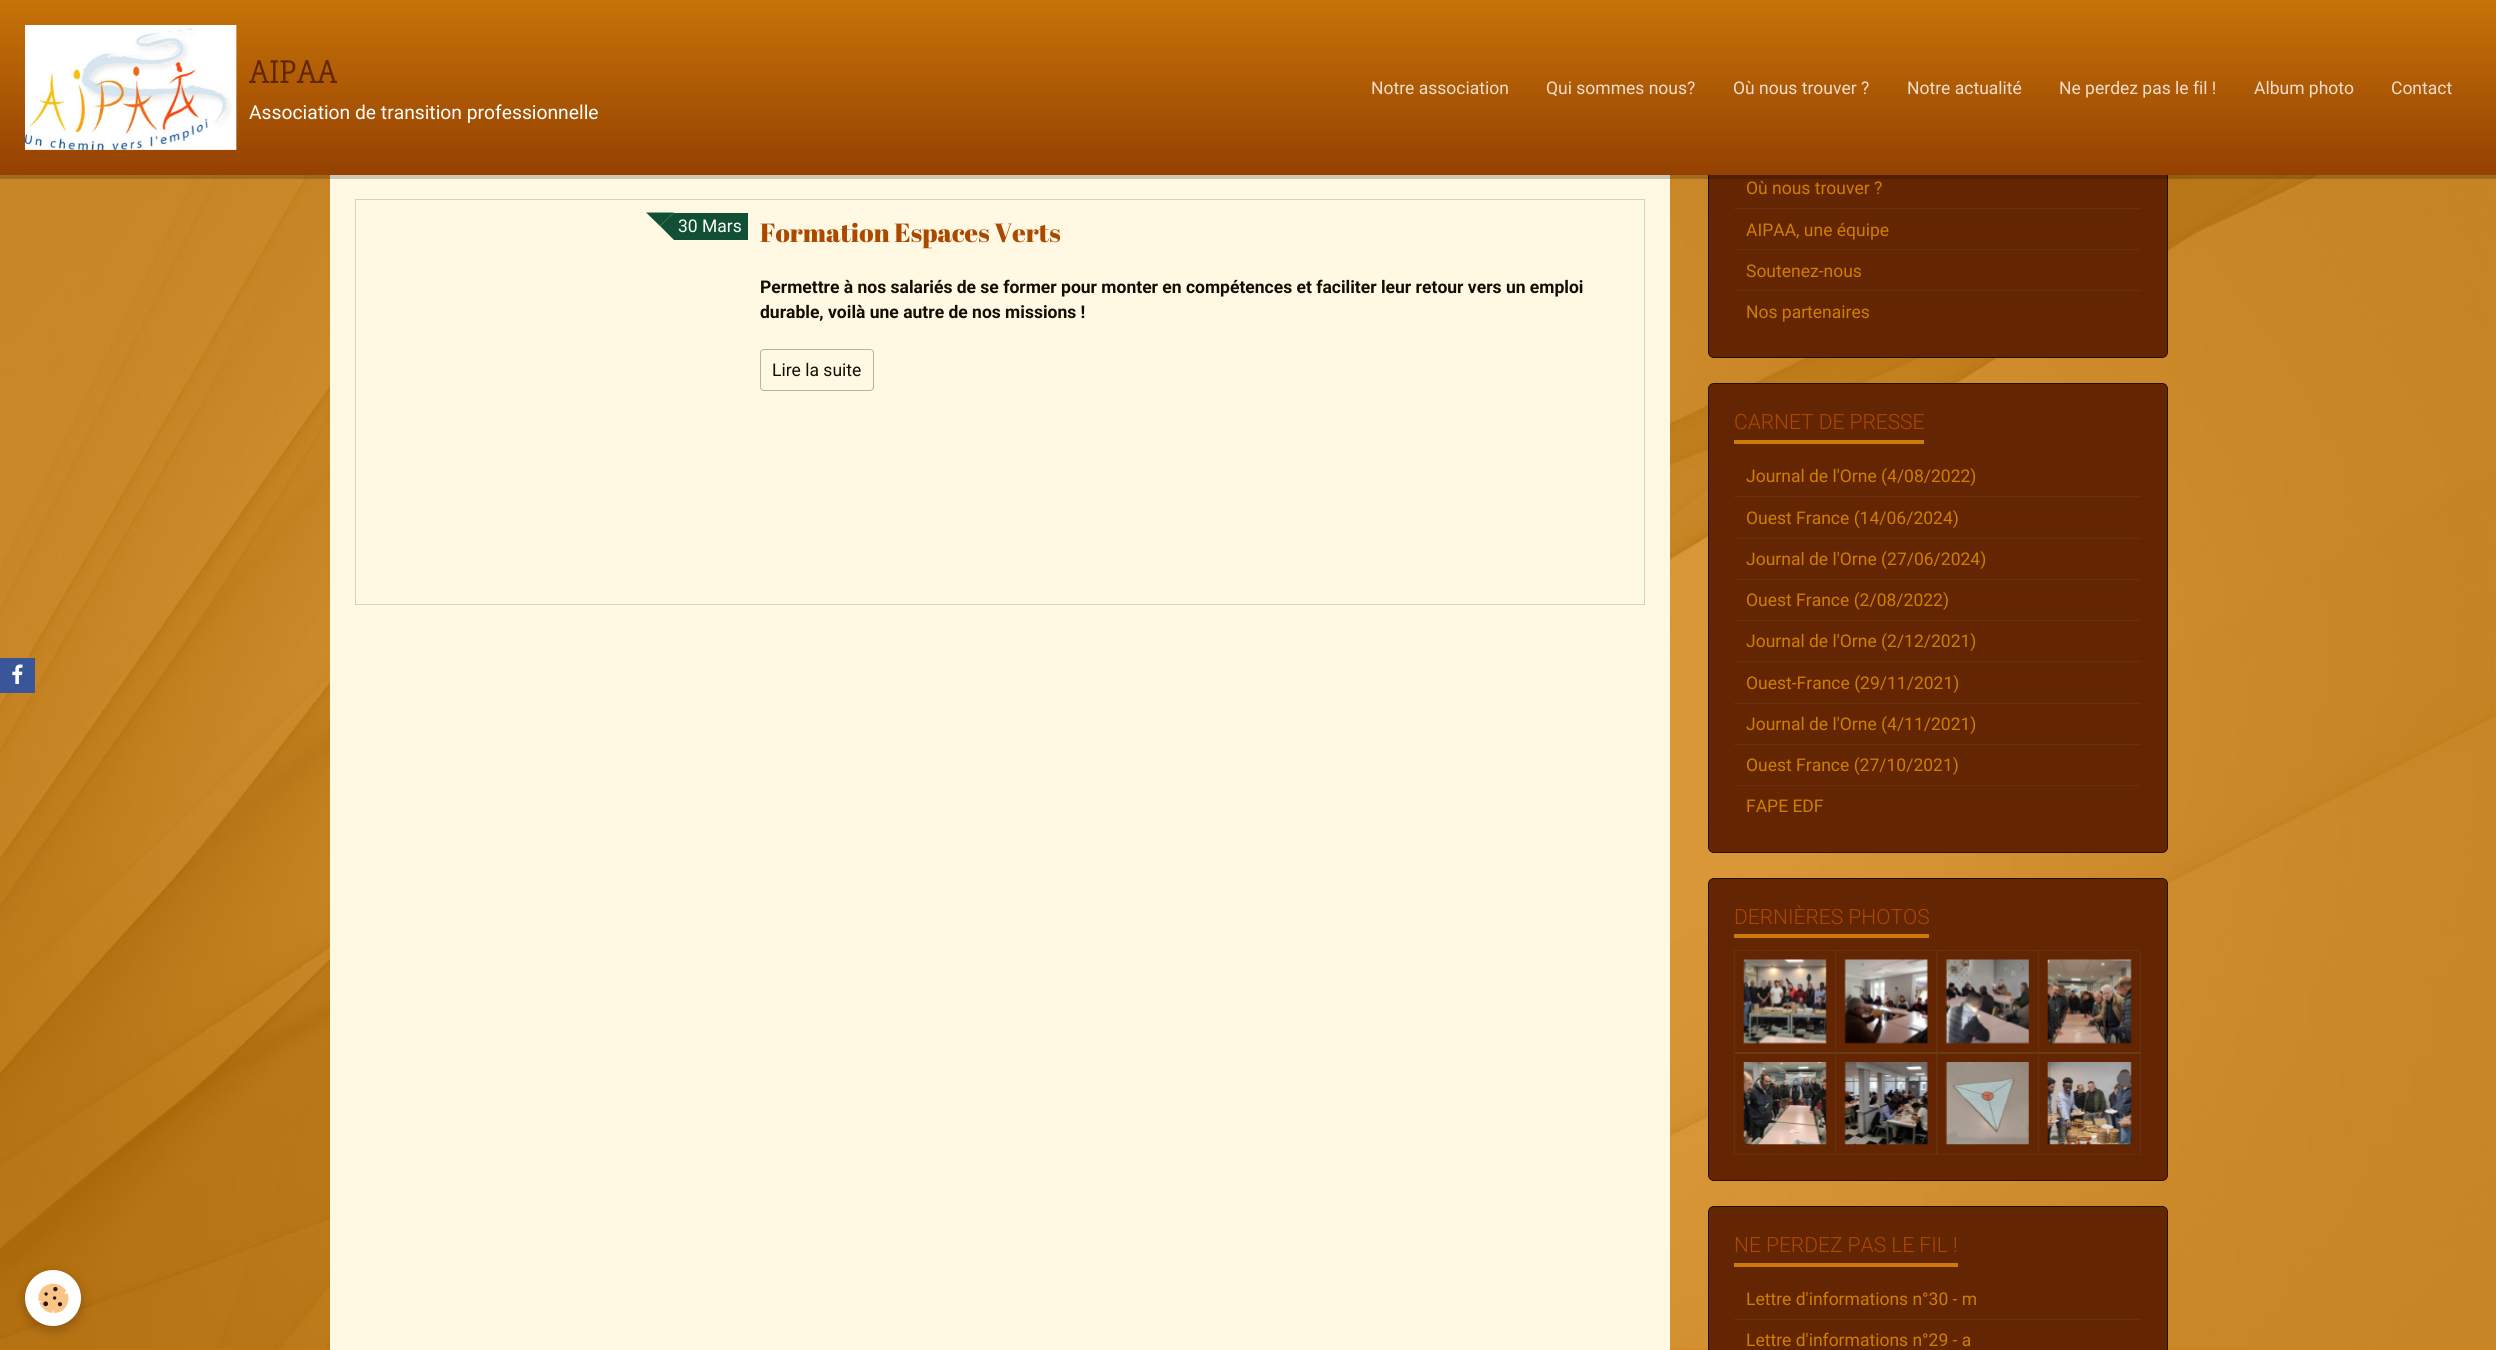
#include <cairo.h>
#include <math.h>
#include <stddef.h>


static void round_rect(cairo_t *cr, double x, double y, double w, double h, double r) {
    cairo_new_sub_path(cr);
    cairo_arc(cr, x + w - r, y + h - r, r, 0, M_PI / 2);
    cairo_arc(cr, x + r, y + h - r, r, M_PI / 2, M_PI);
    cairo_arc(cr, x + r, y + r, r, M_PI, 1.5 * M_PI);
    cairo_arc(cr, x + w - r, y + r, r, 1.5 * M_PI, 2 * M_PI);
    cairo_close_path(cr);
}

static void shadow(cairo_t *cr, double x, double y, double w, double h, double r, double blur, double alpha) {
    cairo_push_group_with_content(cr, CAIRO_CONTENT_ALPHA);
    cairo_set_operator(cr, CAIRO_OPERATOR_SOURCE);
    for (int i = 15; i >= -15 && fmin(w, h) + blur * i / 3 > 0; i -= 2) {
        double e = blur * i / 6;
        cairo_set_source_rgba(cr, 0, 0, 0, alpha * erfc((i - 1) / 8.5) / 2);
        round_rect(cr, x - e, y - e, w + 2 * e, h + 2 * e, fmax(0, fmin(r + e + blur * .6, fmin(w, h) / 2 + e)));
        cairo_fill(cr);
    }
    cairo_pattern_t *soft = cairo_pop_group(cr);
    cairo_mask(cr, soft);
    cairo_pattern_destroy(soft);
}

static void picture(cairo_t *cr, const char *path, double x, double y, double w, double h) {
    cairo_surface_t *image = cairo_image_surface_create_from_png(path);
    cairo_save(cr);
    cairo_set_source_surface(cr, image, x, y);
    cairo_rectangle(cr, x, y, w, h);
    cairo_fill(cr);
    cairo_restore(cr);
    cairo_surface_destroy(image);
}

int main(void) {
    cairo_surface_t *surface = cairo_image_surface_create(CAIRO_FORMAT_RGB24, 2496, 1350);
    cairo_t *cr = cairo_create(surface);
    cairo_font_options_t *options = cairo_font_options_create();
    cairo_font_options_set_hint_metrics(options, CAIRO_HINT_METRICS_OFF);
    cairo_font_options_set_hint_style(options, CAIRO_HINT_STYLE_NONE);
    cairo_set_font_options(cr, options);
    cairo_set_miter_limit(cr, 4);
    cairo_pattern_t *gradient;
    cairo_set_source_rgb(cr, 0.827, 0.502, 0.039);
    cairo_paint(cr);
    picture(cr, "img1.png", 0, 175, 2496, 1175);
    cairo_set_source_rgb(cr, 1, 0.973, 0.89);
    cairo_rectangle(cr, 330, 175, 1340, 1175);
    cairo_fill(cr);
    cairo_set_source_rgb(cr, 0.392, 0.145, 0.008);
    round_rect(cr, 1708.5, 54.5, 459, 303, 5.5);
    cairo_fill_preserve(cr);
    cairo_set_source_rgb(cr, 0.137, 0.059, 0.012);
    cairo_set_line_width(cr, 1);
    cairo_stroke(cr);
    cairo_set_source_rgba(cr, 0, 0, 0, 0.2);
    cairo_rectangle(cr, 0, 175, 2496, 4);
    cairo_fill(cr);
    gradient = cairo_pattern_create_linear(1248, -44, 1248, 175);
    cairo_pattern_add_color_stop_rgba(gradient, 0, 0.827, 0.502, 0.039, 1);
    cairo_pattern_add_color_stop_rgba(gradient, 1, 0.584, 0.255, 0.008, 1);
    cairo_set_source(cr, gradient);
    cairo_pattern_destroy(gradient);
    cairo_rectangle(cr, 0, 0, 2496, 175);
    cairo_fill(cr);
    picture(cr, "img2.png", 25, 25, 212, 125);
    cairo_select_font_face(cr, "Slabo 27px", CAIRO_FONT_SLANT_NORMAL, CAIRO_FONT_WEIGHT_NORMAL);
    cairo_set_font_size(cr, 34);
    cairo_set_source_rgb(cr, 0.392, 0.145, 0.008);
    cairo_move_to(cr, 249, 83);
    cairo_show_text(cr, "AIPAA");
    cairo_select_font_face(cr, "Roboto", CAIRO_FONT_SLANT_NORMAL, CAIRO_FONT_WEIGHT_NORMAL);
    cairo_set_font_size(cr, 19.25);
    cairo_set_source_rgb(cr, 1, 1, 1);
    cairo_move_to(cr, 249, 119);
    cairo_show_text(cr, "Association de transition professionnelle");
    cairo_set_font_size(cr, 17.5);
    cairo_set_source_rgb(cr, 0.937, 0.871, 0.804);
    cairo_move_to(cr, 1371, 94);
    cairo_show_text(cr, "Notre association");
    cairo_move_to(cr, 1546, 94);
    cairo_show_text(cr, "Qui sommes nous?");
    cairo_move_to(cr, 1733, 94);
    cairo_show_text(cr, "Où nous trouver ?");
    cairo_move_to(cr, 1907, 94);
    cairo_show_text(cr, "Notre actualité");
    cairo_move_to(cr, 2059, 94);
    cairo_show_text(cr, "Ne perdez pas le fil !");
    cairo_move_to(cr, 2254, 94);
    cairo_show_text(cr, "Album photo");
    cairo_move_to(cr, 2391, 94);
    cairo_show_text(cr, "Contact");
    cairo_set_source_rgb(cr, 0.22, 0.337, 0.6);
    cairo_rectangle(cr, 0, 658, 35, 35);
    cairo_fill(cr);
    picture(cr, "img3.png", 12, 664, 11, 20);
    cairo_rectangle(cr, 355.5, 199.5, 1289, 405);
    cairo_set_source_rgb(cr, 0.824, 0.831, 0.733);
    cairo_stroke(cr);
    cairo_set_source_rgb(cr, 0.071, 0.314, 0.212);
    cairo_rectangle(cr, 674, 213, 74, 27);
    cairo_fill(cr);
    cairo_new_path(cr);
    cairo_move_to(cr, 646, 212.5);
    cairo_line_to(cr, 674, 212.5);
    cairo_line_to(cr, 660, 226);
    cairo_close_path(cr);
    cairo_fill(cr);
    cairo_new_path(cr);
    cairo_move_to(cr, 674, 212.5);
    cairo_line_to(cr, 674, 240);
    cairo_line_to(cr, 660, 226);
    cairo_close_path(cr);
    cairo_fill(cr);
    cairo_set_source_rgb(cr, 1, 1, 1);
    cairo_move_to(cr, 678, 232);
    cairo_show_text(cr, "30 Mars");
    cairo_select_font_face(cr, "Abril Fatface", CAIRO_FONT_SLANT_NORMAL, CAIRO_FONT_WEIGHT_NORMAL);
    cairo_set_font_size(cr, 26.25);
    cairo_set_source_rgb(cr, 0.671, 0.286, 0);
    cairo_move_to(cr, 760, 242);
    cairo_show_text(cr, "Formation Espaces Verts");
    cairo_select_font_face(cr, "Roboto", CAIRO_FONT_SLANT_NORMAL, CAIRO_FONT_WEIGHT_BOLD);
    cairo_set_font_size(cr, 17.5);
    cairo_set_source_rgb(cr, 0.075, 0.051, 0.004);
    cairo_move_to(cr, 760, 293);
    cairo_show_text(cr, "Permettre à nos salariés de se former pour monter en compétences et faciliter leur retour vers un emploi");
    cairo_move_to(cr, 760, 318);
    cairo_show_text(cr, "durable, voilà une autre de nos missions !");
    round_rect(cr, 760.5, 349.5, 113, 41, 3.5);
    cairo_set_source_rgb(cr, 0.722, 0.694, 0.624);
    cairo_stroke(cr);
    cairo_select_font_face(cr, "Roboto", CAIRO_FONT_SLANT_NORMAL, CAIRO_FONT_WEIGHT_NORMAL);
    cairo_set_source_rgb(cr, 0.075, 0.051, 0.004);
    cairo_move_to(cr, 772, 376);
    cairo_show_text(cr, "Lire la suite");
    cairo_set_source_rgb(cr, 0.404, 0.196, 0.043);
    cairo_rectangle(cr, 1734, 208, 407, 1);
    cairo_fill(cr);
    cairo_set_source_rgb(cr, 0.808, 0.494, 0);
    cairo_move_to(cr, 1746, 194);
    cairo_show_text(cr, "Où nous trouver ?");
    cairo_set_source_rgb(cr, 0.404, 0.196, 0.043);
    cairo_rectangle(cr, 1734, 249, 407, 1);
    cairo_fill(cr);
    cairo_set_source_rgb(cr, 0.808, 0.494, 0);
    cairo_move_to(cr, 1746, 236);
    cairo_show_text(cr, "AIPAA, une équipe");
    cairo_set_source_rgb(cr, 0.404, 0.196, 0.043);
    cairo_rectangle(cr, 1734, 290, 407, 1);
    cairo_fill(cr);
    cairo_set_source_rgb(cr, 0.808, 0.494, 0);
    cairo_move_to(cr, 1746, 277);
    cairo_show_text(cr, "Soutenez-nous");
    cairo_move_to(cr, 1746, 318);
    cairo_show_text(cr, "Nos partenaires");
    cairo_set_source_rgb(cr, 0.392, 0.145, 0.008);
    round_rect(cr, 1708.5, 383.5, 459, 469, 5.5);
    cairo_fill_preserve(cr);
    cairo_set_source_rgb(cr, 0.137, 0.059, 0.012);
    cairo_stroke(cr);
    cairo_set_source_rgb(cr, 0.808, 0.478, 0.035);
    cairo_rectangle(cr, 1734, 440, 190, 4);
    cairo_fill(cr);
    cairo_select_font_face(cr, "Roboto Light", CAIRO_FONT_SLANT_NORMAL, CAIRO_FONT_WEIGHT_NORMAL);
    cairo_set_font_size(cr, 21);
    cairo_set_source_rgb(cr, 0.671, 0.286, 0);
    cairo_move_to(cr, 1734, 429);
    cairo_show_text(cr, "CARNET DE PRESSE");
    cairo_set_source_rgb(cr, 0.404, 0.196, 0.043);
    cairo_rectangle(cr, 1734, 496, 407, 1);
    cairo_fill(cr);
    cairo_select_font_face(cr, "Roboto", CAIRO_FONT_SLANT_NORMAL, CAIRO_FONT_WEIGHT_NORMAL);
    cairo_set_font_size(cr, 17.5);
    cairo_set_source_rgb(cr, 0.808, 0.494, 0);
    cairo_move_to(cr, 1746, 482);
    cairo_show_text(cr, "Journal de l'Orne (4/08/2022)");
    cairo_set_source_rgb(cr, 0.404, 0.196, 0.043);
    cairo_rectangle(cr, 1734, 538, 407, 1);
    cairo_fill(cr);
    cairo_set_source_rgb(cr, 0.808, 0.494, 0);
    cairo_move_to(cr, 1746, 524);
    cairo_show_text(cr, "Ouest France (14/06/2024)");
    cairo_set_source_rgb(cr, 0.404, 0.196, 0.043);
    cairo_rectangle(cr, 1734, 579, 407, 1);
    cairo_fill(cr);
    cairo_set_source_rgb(cr, 0.808, 0.494, 0);
    cairo_move_to(cr, 1746, 565);
    cairo_show_text(cr, "Journal de l'Orne (27/06/2024)");
    cairo_set_source_rgb(cr, 0.404, 0.196, 0.043);
    cairo_rectangle(cr, 1734, 620, 407, 1);
    cairo_fill(cr);
    cairo_set_source_rgb(cr, 0.808, 0.494, 0);
    cairo_move_to(cr, 1746, 606);
    cairo_show_text(cr, "Ouest France (2/08/2022)");
    cairo_set_source_rgb(cr, 0.404, 0.196, 0.043);
    cairo_rectangle(cr, 1734, 661, 407, 1);
    cairo_fill(cr);
    cairo_set_source_rgb(cr, 0.808, 0.494, 0);
    cairo_move_to(cr, 1746, 647);
    cairo_show_text(cr, "Journal de l'Orne (2/12/2021)");
    cairo_set_source_rgb(cr, 0.404, 0.196, 0.043);
    cairo_rectangle(cr, 1734, 703, 407, 1);
    cairo_fill(cr);
    cairo_set_source_rgb(cr, 0.808, 0.494, 0);
    cairo_move_to(cr, 1746, 689);
    cairo_show_text(cr, "Ouest-France (29/11/2021)");
    cairo_set_source_rgb(cr, 0.404, 0.196, 0.043);
    cairo_rectangle(cr, 1734, 744, 407, 1);
    cairo_fill(cr);
    cairo_set_source_rgb(cr, 0.808, 0.494, 0);
    cairo_move_to(cr, 1746, 730);
    cairo_show_text(cr, "Journal de l'Orne (4/11/2021)");
    cairo_set_source_rgb(cr, 0.404, 0.196, 0.043);
    cairo_rectangle(cr, 1734, 785, 407, 1);
    cairo_fill(cr);
    cairo_set_source_rgb(cr, 0.808, 0.494, 0);
    cairo_move_to(cr, 1746, 771);
    cairo_show_text(cr, "Ouest France (27/10/2021)");
    cairo_move_to(cr, 1746, 812);
    cairo_show_text(cr, "FAPE EDF");
    cairo_set_source_rgb(cr, 0.392, 0.145, 0.008);
    round_rect(cr, 1708.5, 878.5, 459, 302, 5.5);
    cairo_fill_preserve(cr);
    cairo_set_source_rgb(cr, 0.137, 0.059, 0.012);
    cairo_stroke(cr);
    cairo_set_source_rgb(cr, 0.808, 0.478, 0.035);
    cairo_rectangle(cr, 1734, 934, 195, 4);
    cairo_fill(cr);
    cairo_select_font_face(cr, "Roboto Light", CAIRO_FONT_SLANT_NORMAL, CAIRO_FONT_WEIGHT_NORMAL);
    cairo_set_font_size(cr, 21);
    cairo_set_source_rgb(cr, 0.671, 0.286, 0);
    cairo_move_to(cr, 1734, 924);
    cairo_show_text(cr, "DERNIÈRES PHOTOS");
    cairo_set_source_rgb(cr, 0.404, 0.196, 0.043);
    cairo_rectangle(cr, 1734, 950, 1, 205);
    cairo_fill(cr);
    cairo_new_path(cr);
    cairo_move_to(cr, 1735, 950);
    cairo_line_to(cr, 1836, 950);
    cairo_line_to(cr, 1835, 951);
    cairo_line_to(cr, 1735, 951);
    cairo_close_path(cr);
    cairo_fill(cr);
    cairo_set_source_rgba(cr, 0.451, 0.396, 0.176, 0.2);
    cairo_new_path(cr);
    cairo_move_to(cr, 1836, 950);
    cairo_line_to(cr, 1836, 1054);
    cairo_line_to(cr, 1835, 1052);
    cairo_line_to(cr, 1835, 951);
    cairo_close_path(cr);
    cairo_fill(cr);
    cairo_new_path(cr);
    cairo_move_to(cr, 1836, 1054);
    cairo_line_to(cr, 1735, 1054);
    cairo_line_to(cr, 1735, 1052);
    cairo_line_to(cr, 1835, 1052);
    cairo_close_path(cr);
    cairo_fill(cr);
    picture(cr, "img4.png", 1743, 959, 84, 85);
    cairo_set_source_rgb(cr, 0.404, 0.196, 0.043);
    cairo_new_path(cr);
    cairo_move_to(cr, 1836, 950);
    cairo_line_to(cr, 1938, 950);
    cairo_line_to(cr, 1936, 951);
    cairo_line_to(cr, 1836, 951);
    cairo_close_path(cr);
    cairo_fill(cr);
    cairo_set_source_rgba(cr, 0.451, 0.396, 0.176, 0.2);
    cairo_new_path(cr);
    cairo_move_to(cr, 1938, 950);
    cairo_line_to(cr, 1938, 1054);
    cairo_line_to(cr, 1936, 1052);
    cairo_line_to(cr, 1936, 951);
    cairo_close_path(cr);
    cairo_fill(cr);
    cairo_new_path(cr);
    cairo_move_to(cr, 1938, 1054);
    cairo_line_to(cr, 1836, 1054);
    cairo_line_to(cr, 1836, 1052);
    cairo_line_to(cr, 1936, 1052);
    cairo_close_path(cr);
    cairo_fill(cr);
    picture(cr, "img5.png", 1844, 959, 84, 85);
    cairo_set_source_rgb(cr, 0.404, 0.196, 0.043);
    cairo_new_path(cr);
    cairo_move_to(cr, 1938, 950);
    cairo_line_to(cr, 2039, 950);
    cairo_line_to(cr, 2038, 951);
    cairo_line_to(cr, 1938, 951);
    cairo_close_path(cr);
    cairo_fill(cr);
    cairo_set_source_rgba(cr, 0.451, 0.396, 0.176, 0.2);
    cairo_new_path(cr);
    cairo_move_to(cr, 2039, 950);
    cairo_line_to(cr, 2039, 1054);
    cairo_line_to(cr, 2038, 1052);
    cairo_line_to(cr, 2038, 951);
    cairo_close_path(cr);
    cairo_fill(cr);
    cairo_new_path(cr);
    cairo_move_to(cr, 2039, 1054);
    cairo_line_to(cr, 1938, 1054);
    cairo_line_to(cr, 1938, 1052);
    cairo_line_to(cr, 2038, 1052);
    cairo_close_path(cr);
    cairo_fill(cr);
    picture(cr, "img6.png", 1945, 959, 84, 85);
    cairo_set_source_rgb(cr, 0.404, 0.196, 0.043);
    cairo_new_path(cr);
    cairo_move_to(cr, 2039, 950);
    cairo_line_to(cr, 2141, 950);
    cairo_line_to(cr, 2140, 951);
    cairo_line_to(cr, 2039, 951);
    cairo_close_path(cr);
    cairo_fill(cr);
    cairo_set_source_rgba(cr, 0.451, 0.396, 0.176, 0.2);
    cairo_new_path(cr);
    cairo_move_to(cr, 2141, 950);
    cairo_line_to(cr, 2141, 1054);
    cairo_line_to(cr, 2140, 1052);
    cairo_line_to(cr, 2140, 951);
    cairo_close_path(cr);
    cairo_fill(cr);
    cairo_new_path(cr);
    cairo_move_to(cr, 2141, 1054);
    cairo_line_to(cr, 2039, 1054);
    cairo_line_to(cr, 2039, 1052);
    cairo_line_to(cr, 2140, 1052);
    cairo_close_path(cr);
    cairo_fill(cr);
    picture(cr, "img7.png", 2047, 959, 85, 85);
    cairo_set_source_rgb(cr, 0.412, 0.235, 0.067);
    cairo_new_path(cr);
    cairo_move_to(cr, 1735, 1052);
    cairo_line_to(cr, 1836, 1052);
    cairo_line_to(cr, 1835, 1054);
    cairo_line_to(cr, 1735, 1054);
    cairo_close_path(cr);
    cairo_fill(cr);
    cairo_set_source_rgba(cr, 0.451, 0.396, 0.176, 0.2);
    cairo_new_path(cr);
    cairo_move_to(cr, 1836, 1052);
    cairo_line_to(cr, 1836, 1155);
    cairo_line_to(cr, 1835, 1154);
    cairo_line_to(cr, 1835, 1054);
    cairo_close_path(cr);
    cairo_fill(cr);
    cairo_new_path(cr);
    cairo_move_to(cr, 1836, 1155);
    cairo_line_to(cr, 1735, 1155);
    cairo_line_to(cr, 1735, 1154);
    cairo_line_to(cr, 1835, 1154);
    cairo_close_path(cr);
    cairo_fill(cr);
    picture(cr, "img8.png", 1743, 1062, 84, 83);
    cairo_set_source_rgb(cr, 0.412, 0.235, 0.067);
    cairo_new_path(cr);
    cairo_move_to(cr, 1836, 1052);
    cairo_line_to(cr, 1938, 1052);
    cairo_line_to(cr, 1936, 1054);
    cairo_line_to(cr, 1836, 1054);
    cairo_close_path(cr);
    cairo_fill(cr);
    cairo_set_source_rgba(cr, 0.451, 0.396, 0.176, 0.2);
    cairo_new_path(cr);
    cairo_move_to(cr, 1938, 1052);
    cairo_line_to(cr, 1938, 1155);
    cairo_line_to(cr, 1936, 1154);
    cairo_line_to(cr, 1936, 1054);
    cairo_close_path(cr);
    cairo_fill(cr);
    cairo_new_path(cr);
    cairo_move_to(cr, 1938, 1155);
    cairo_line_to(cr, 1836, 1155);
    cairo_line_to(cr, 1836, 1154);
    cairo_line_to(cr, 1936, 1154);
    cairo_close_path(cr);
    cairo_fill(cr);
    picture(cr, "img9.png", 1844, 1062, 84, 83);
    cairo_set_source_rgb(cr, 0.412, 0.235, 0.067);
    cairo_new_path(cr);
    cairo_move_to(cr, 1938, 1052);
    cairo_line_to(cr, 2039, 1052);
    cairo_line_to(cr, 2038, 1054);
    cairo_line_to(cr, 1938, 1054);
    cairo_close_path(cr);
    cairo_fill(cr);
    cairo_set_source_rgba(cr, 0.451, 0.396, 0.176, 0.2);
    cairo_new_path(cr);
    cairo_move_to(cr, 2039, 1052);
    cairo_line_to(cr, 2039, 1155);
    cairo_line_to(cr, 2038, 1154);
    cairo_line_to(cr, 2038, 1054);
    cairo_close_path(cr);
    cairo_fill(cr);
    cairo_new_path(cr);
    cairo_move_to(cr, 2039, 1155);
    cairo_line_to(cr, 1938, 1155);
    cairo_line_to(cr, 1938, 1154);
    cairo_line_to(cr, 2038, 1154);
    cairo_close_path(cr);
    cairo_fill(cr);
    picture(cr, "img10.png", 1945, 1062, 84, 83);
    cairo_set_source_rgb(cr, 0.412, 0.235, 0.067);
    cairo_new_path(cr);
    cairo_move_to(cr, 2039, 1052);
    cairo_line_to(cr, 2141, 1052);
    cairo_line_to(cr, 2140, 1054);
    cairo_line_to(cr, 2039, 1054);
    cairo_close_path(cr);
    cairo_fill(cr);
    cairo_set_source_rgba(cr, 0.451, 0.396, 0.176, 0.2);
    cairo_new_path(cr);
    cairo_move_to(cr, 2141, 1052);
    cairo_line_to(cr, 2141, 1155);
    cairo_line_to(cr, 2140, 1154);
    cairo_line_to(cr, 2140, 1054);
    cairo_close_path(cr);
    cairo_fill(cr);
    cairo_new_path(cr);
    cairo_move_to(cr, 2141, 1155);
    cairo_line_to(cr, 2039, 1155);
    cairo_line_to(cr, 2039, 1154);
    cairo_line_to(cr, 2140, 1154);
    cairo_close_path(cr);
    cairo_fill(cr);
    picture(cr, "img11.png", 2047, 1062, 85, 83);
    cairo_set_source_rgb(cr, 0.392, 0.145, 0.008);
    round_rect(cr, 1708.5, 1206.5, 459, 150, 5.5);
    cairo_fill_preserve(cr);
    cairo_set_source_rgb(cr, 0.137, 0.059, 0.012);
    cairo_stroke(cr);
    cairo_set_source_rgb(cr, 0.808, 0.478, 0.035);
    cairo_rectangle(cr, 1734, 1263, 224, 4);
    cairo_fill(cr);
    cairo_set_source_rgb(cr, 0.671, 0.286, 0);
    cairo_move_to(cr, 1734, 1252);
    cairo_show_text(cr, "NE PERDEZ PAS LE FIL !");
    cairo_set_source_rgb(cr, 0.404, 0.196, 0.043);
    cairo_rectangle(cr, 1734, 1319, 407, 1);
    cairo_fill(cr);
    cairo_select_font_face(cr, "Roboto", CAIRO_FONT_SLANT_NORMAL, CAIRO_FONT_WEIGHT_NORMAL);
    cairo_set_font_size(cr, 17.5);
    cairo_set_source_rgb(cr, 0.808, 0.494, 0);
    cairo_move_to(cr, 1746, 1305);
    cairo_show_text(cr, "Lettre d'informations n°30 - m");
    cairo_move_to(cr, 1746, 1346);
    cairo_show_text(cr, "Lettre d'informations n°29 - a");
    cairo_set_source_rgb(cr, 0, 0, 0);
    shadow(cr, 25, 1274, 56, 56, 28, 6, 0.24);
    cairo_set_source_rgb(cr, 1, 1, 1);
    cairo_arc(cr, 53, 1298, 28, 0, 2 * M_PI);
    cairo_fill(cr);
    picture(cr, "img12.png", 38, 1283, 31, 30);
    cairo_surface_write_to_png(surface, "page.png");
    cairo_font_options_destroy(options);
    cairo_destroy(cr);
    cairo_surface_destroy(surface);
    return 0;
}
